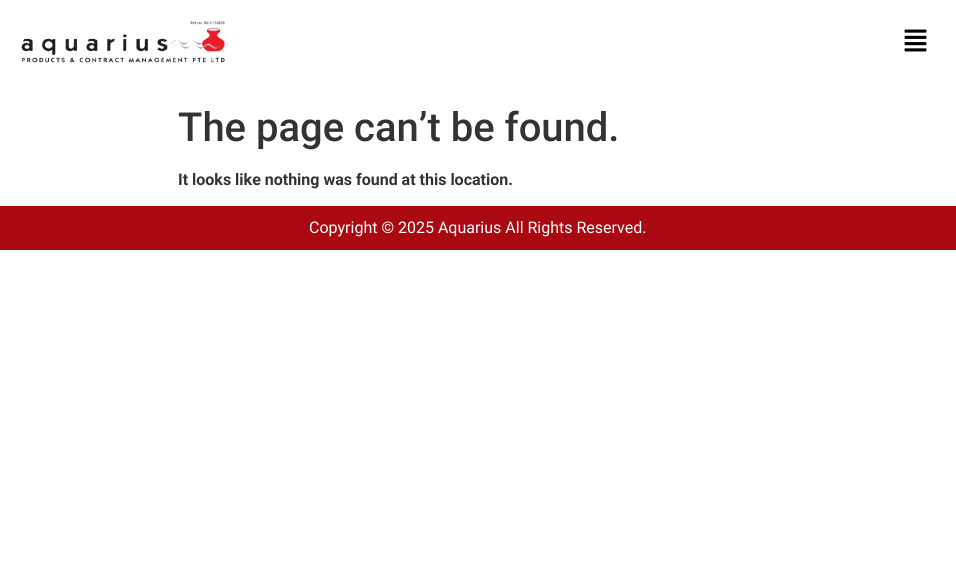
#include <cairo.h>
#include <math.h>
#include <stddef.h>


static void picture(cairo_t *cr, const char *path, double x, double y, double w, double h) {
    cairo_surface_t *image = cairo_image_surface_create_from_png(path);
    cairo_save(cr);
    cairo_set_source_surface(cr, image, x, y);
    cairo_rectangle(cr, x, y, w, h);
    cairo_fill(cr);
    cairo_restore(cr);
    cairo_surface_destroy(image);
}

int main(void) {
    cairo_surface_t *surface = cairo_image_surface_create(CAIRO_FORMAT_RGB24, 956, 561);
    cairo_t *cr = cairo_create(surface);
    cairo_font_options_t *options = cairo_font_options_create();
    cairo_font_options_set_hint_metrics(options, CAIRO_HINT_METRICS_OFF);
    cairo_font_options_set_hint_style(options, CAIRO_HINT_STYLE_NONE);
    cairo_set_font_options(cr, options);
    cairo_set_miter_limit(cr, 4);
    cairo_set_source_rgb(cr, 1, 1, 1);
    cairo_paint(cr);
    picture(cr, "img1.png", 21, 21, 204, 42);
    picture(cr, "img2.png", 904, 29, 23, 23);
    cairo_select_font_face(cr, "Roboto Medium", CAIRO_FONT_SLANT_NORMAL, CAIRO_FONT_WEIGHT_NORMAL);
    cairo_set_font_size(cr, 40);
    cairo_set_source_rgb(cr, 0.2, 0.2, 0.2);
    cairo_move_to(cr, 178, 141);
    cairo_show_text(cr, "The page can’t be found.");
    cairo_select_font_face(cr, "Roboto", CAIRO_FONT_SLANT_NORMAL, CAIRO_FONT_WEIGHT_BOLD);
    cairo_set_font_size(cr, 16);
    cairo_move_to(cr, 178, 185);
    cairo_show_text(cr, "It looks like nothing was found at this location.");
    cairo_set_source_rgb(cr, 0.667, 0.039, 0.071);
    cairo_rectangle(cr, 0, 206, 956, 44);
    cairo_fill(cr);
    cairo_select_font_face(cr, "Roboto", CAIRO_FONT_SLANT_NORMAL, CAIRO_FONT_WEIGHT_NORMAL);
    cairo_set_source_rgb(cr, 1, 1, 1);
    cairo_move_to(cr, 309, 233);
    cairo_show_text(cr, "Copyright © 2025 Aquarius All Rights Reserved.");
    cairo_surface_write_to_png(surface, "page.png");
    cairo_font_options_destroy(options);
    cairo_destroy(cr);
    cairo_surface_destroy(surface);
    return 0;
}
